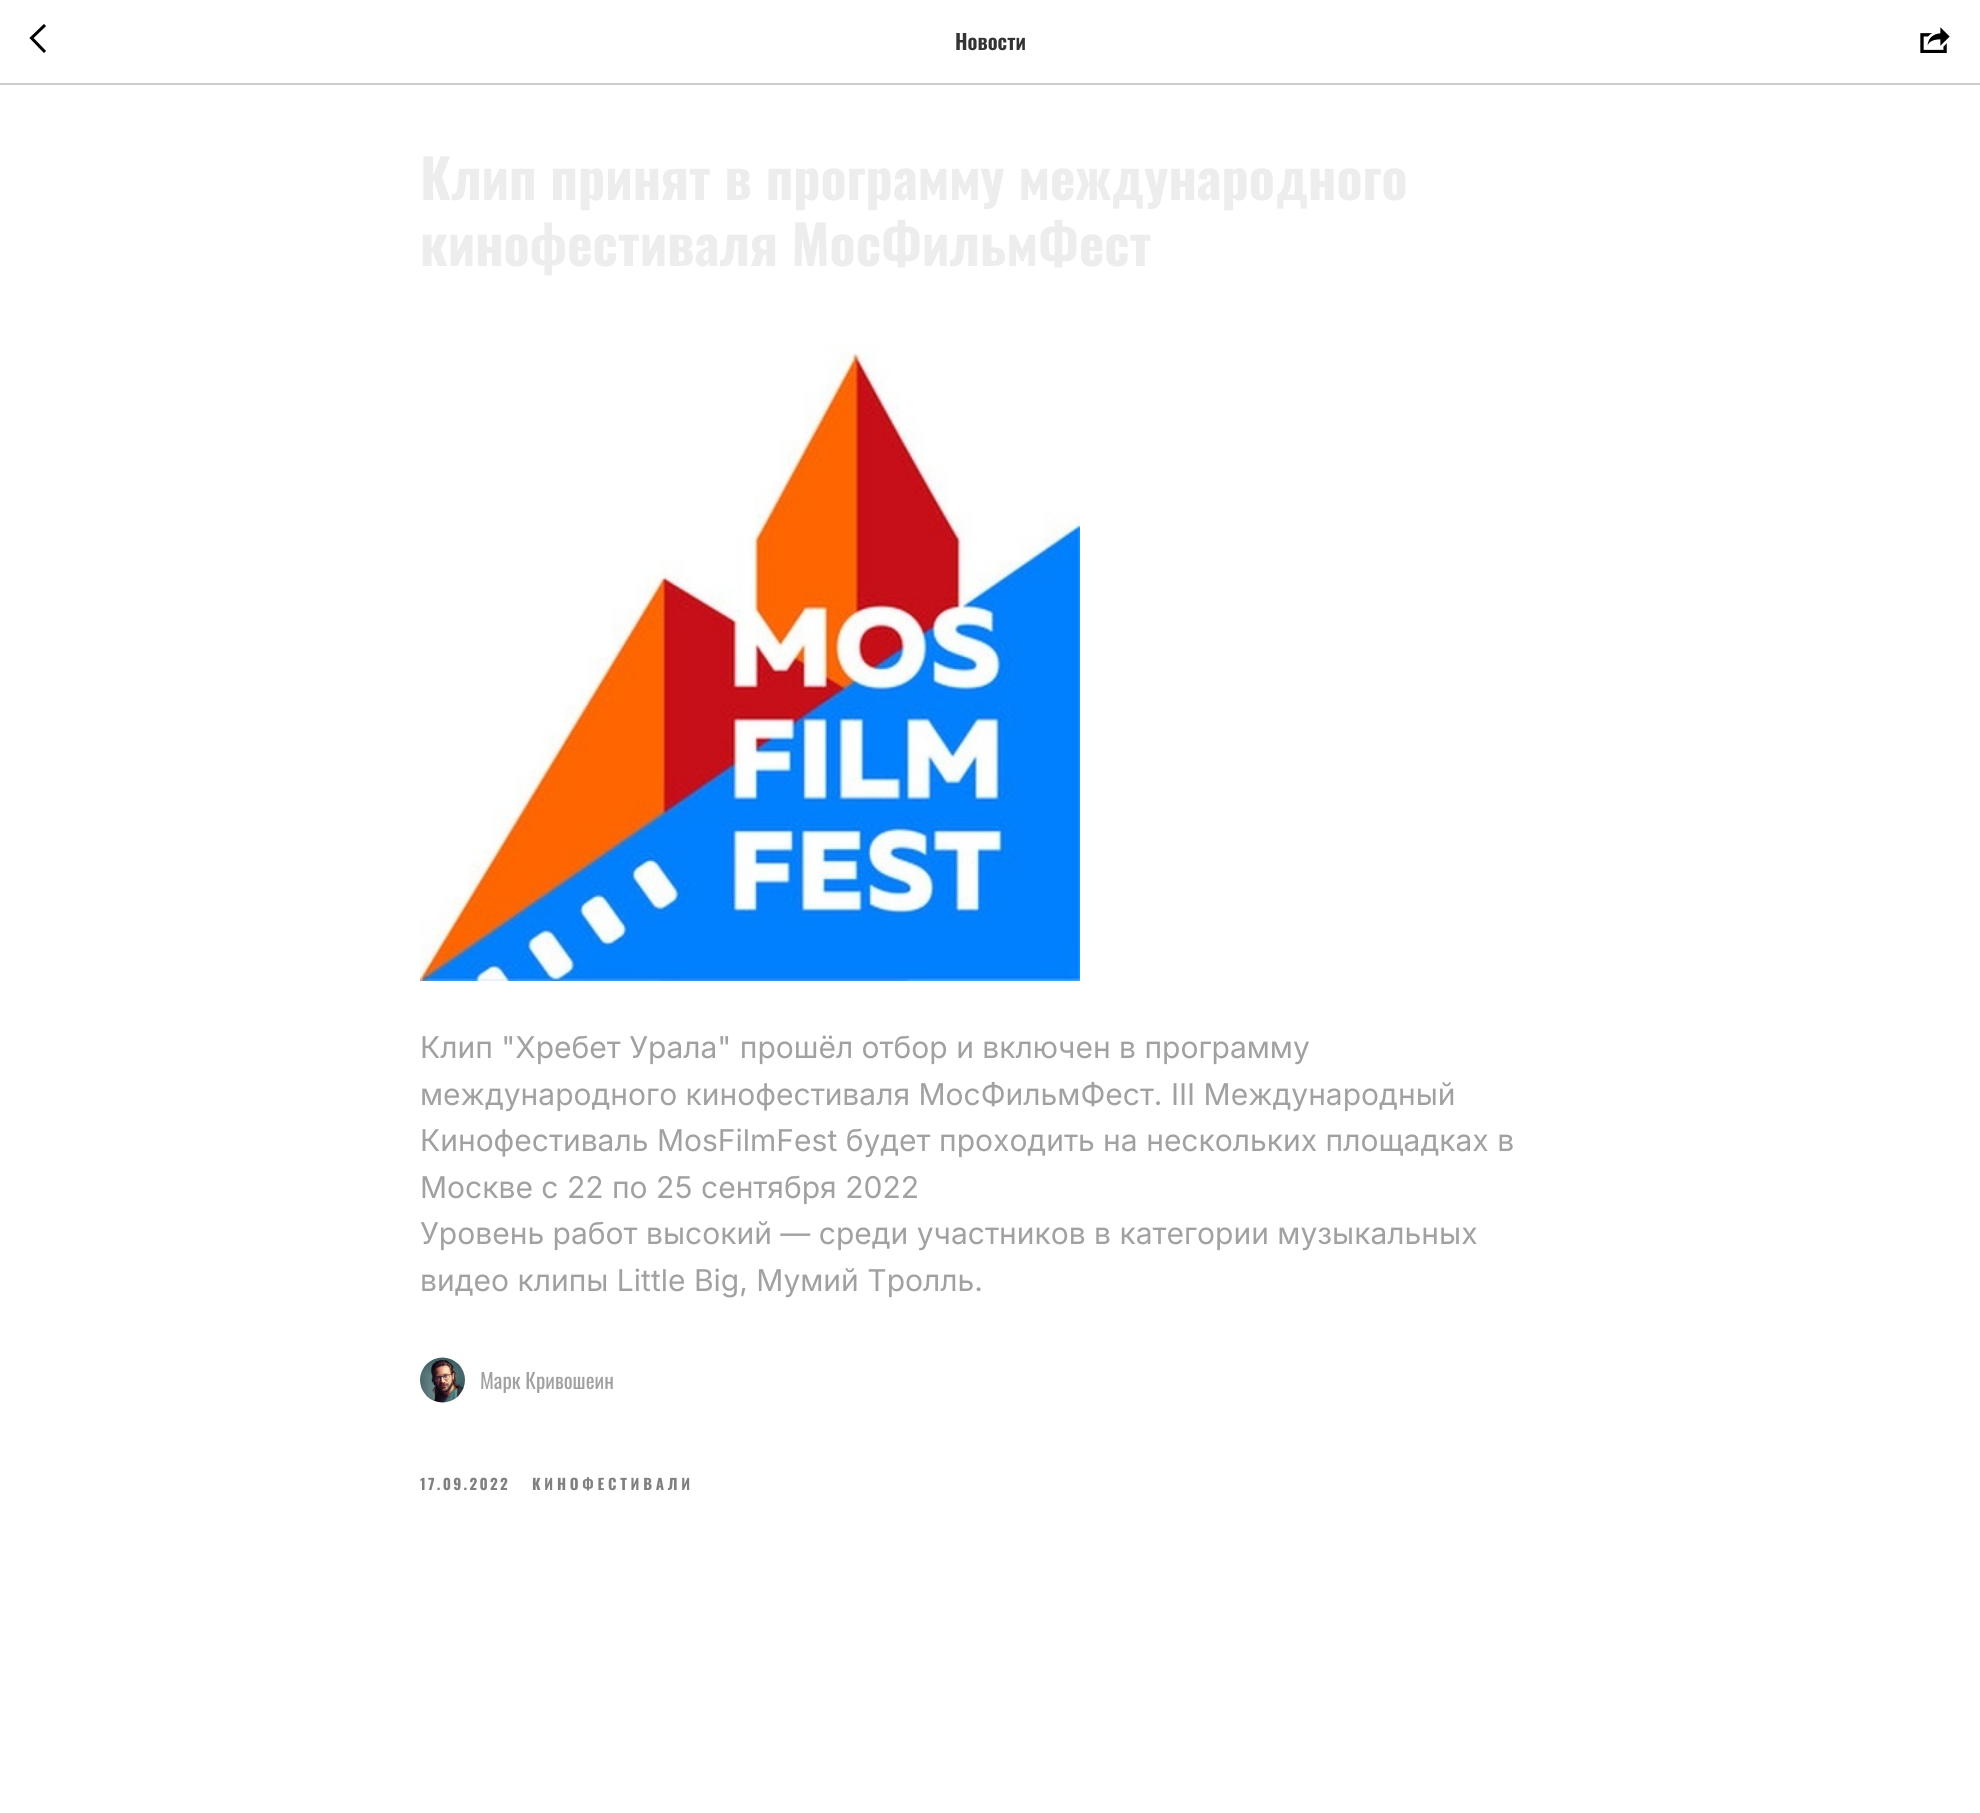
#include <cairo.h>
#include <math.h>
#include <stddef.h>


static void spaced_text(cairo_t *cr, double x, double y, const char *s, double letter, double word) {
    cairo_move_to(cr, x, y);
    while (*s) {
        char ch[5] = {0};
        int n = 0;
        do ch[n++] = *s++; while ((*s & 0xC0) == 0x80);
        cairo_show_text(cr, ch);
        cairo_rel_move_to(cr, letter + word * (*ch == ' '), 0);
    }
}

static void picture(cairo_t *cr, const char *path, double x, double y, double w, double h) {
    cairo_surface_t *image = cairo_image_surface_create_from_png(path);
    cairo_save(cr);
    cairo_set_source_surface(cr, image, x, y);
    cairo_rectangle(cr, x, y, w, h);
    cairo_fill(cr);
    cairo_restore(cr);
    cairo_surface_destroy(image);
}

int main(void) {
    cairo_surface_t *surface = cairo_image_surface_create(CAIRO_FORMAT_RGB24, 1980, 1813);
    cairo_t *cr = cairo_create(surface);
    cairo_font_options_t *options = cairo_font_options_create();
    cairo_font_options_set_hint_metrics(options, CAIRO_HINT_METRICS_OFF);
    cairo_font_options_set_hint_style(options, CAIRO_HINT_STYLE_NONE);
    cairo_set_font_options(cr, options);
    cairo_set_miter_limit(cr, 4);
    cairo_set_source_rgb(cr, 1, 1, 1);
    cairo_paint(cr);
    cairo_set_source_rgb(cr, 0.8, 0.8, 0.8);
    cairo_rectangle(cr, 0, 83, 1980, 2);
    cairo_fill(cr);
    cairo_new_path(cr);
    cairo_move_to(cr, 45, 52);
    cairo_line_to(cr, 31.5, 38);
    cairo_line_to(cr, 45, 25);
    cairo_set_source_rgb(cr, 0, 0, 0);
    cairo_set_line_width(cr, 3);
    cairo_stroke(cr);
    cairo_select_font_face(cr, "Oswald SemiBold", CAIRO_FONT_SLANT_NORMAL, CAIRO_FONT_WEIGHT_NORMAL);
    cairo_set_font_size(cr, 21);
    cairo_set_source_rgb(cr, 0.2, 0.2, 0.2);
    cairo_move_to(cr, 955, 50);
    cairo_show_text(cr, "Новости");
    picture(cr, "img1.png", 1920, 27, 30, 26);
    cairo_select_font_face(cr, "Oswald", CAIRO_FONT_SLANT_NORMAL, CAIRO_FONT_WEIGHT_BOLD);
    cairo_set_font_size(cr, 54);
    cairo_set_source_rgb(cr, 0.929, 0.929, 0.929);
    cairo_move_to(cr, 420, 200);
    cairo_show_text(cr, "Клип принят в программу международного");
    cairo_move_to(cr, 420, 266);
    cairo_show_text(cr, "кинофестиваля МосФильмФест");
    picture(cr, "img2.png", 420, 345, 660, 636);
    cairo_select_font_face(cr, "Inter", CAIRO_FONT_SLANT_NORMAL, CAIRO_FONT_WEIGHT_NORMAL);
    cairo_set_font_size(cr, 30);
    cairo_set_source_rgb(cr, 0.631, 0.631, 0.631);
    cairo_move_to(cr, 420, 1058);
    cairo_show_text(cr, "Клип \"Хребет Урала\" прошёл отбор и включен в программу");
    cairo_move_to(cr, 420, 1105);
    cairo_show_text(cr, "международного кинофестиваля МосФильмФест. III Международный");
    cairo_move_to(cr, 420, 1151);
    cairo_show_text(cr, "Кинофестиваль MosFilmFest будет проходить на нескольких площадках в");
    cairo_move_to(cr, 420, 1198);
    cairo_show_text(cr, "Москве с 22 по 25 сентября 2022");
    cairo_move_to(cr, 420, 1244);
    cairo_show_text(cr, "Уровень работ высокий — среди участников в категории музыкальных");
    cairo_move_to(cr, 420, 1291);
    cairo_show_text(cr, "видео клипы Little Big, Мумий Тролль.");
    picture(cr, "img3.png", 420, 1357, 45, 46);
    cairo_select_font_face(cr, "Oswald", CAIRO_FONT_SLANT_NORMAL, CAIRO_FONT_WEIGHT_NORMAL);
    cairo_set_font_size(cr, 21);
    cairo_move_to(cr, 480, 1389);
    cairo_show_text(cr, "Марк Кривошеин");
    cairo_select_font_face(cr, "Oswald", CAIRO_FONT_SLANT_NORMAL, CAIRO_FONT_WEIGHT_BOLD);
    cairo_set_font_size(cr, 15);
    cairo_set_source_rgb(cr, 0.502, 0.502, 0.502);
    spaced_text(cr, 420, 1490, "17.09.2022", 2.25, 0);
    spaced_text(cr, 532, 1490, "КИНОФЕСТИВАЛИ", 3.75, 0);
    cairo_surface_write_to_png(surface, "page.png");
    cairo_font_options_destroy(options);
    cairo_destroy(cr);
    cairo_surface_destroy(surface);
    return 0;
}
